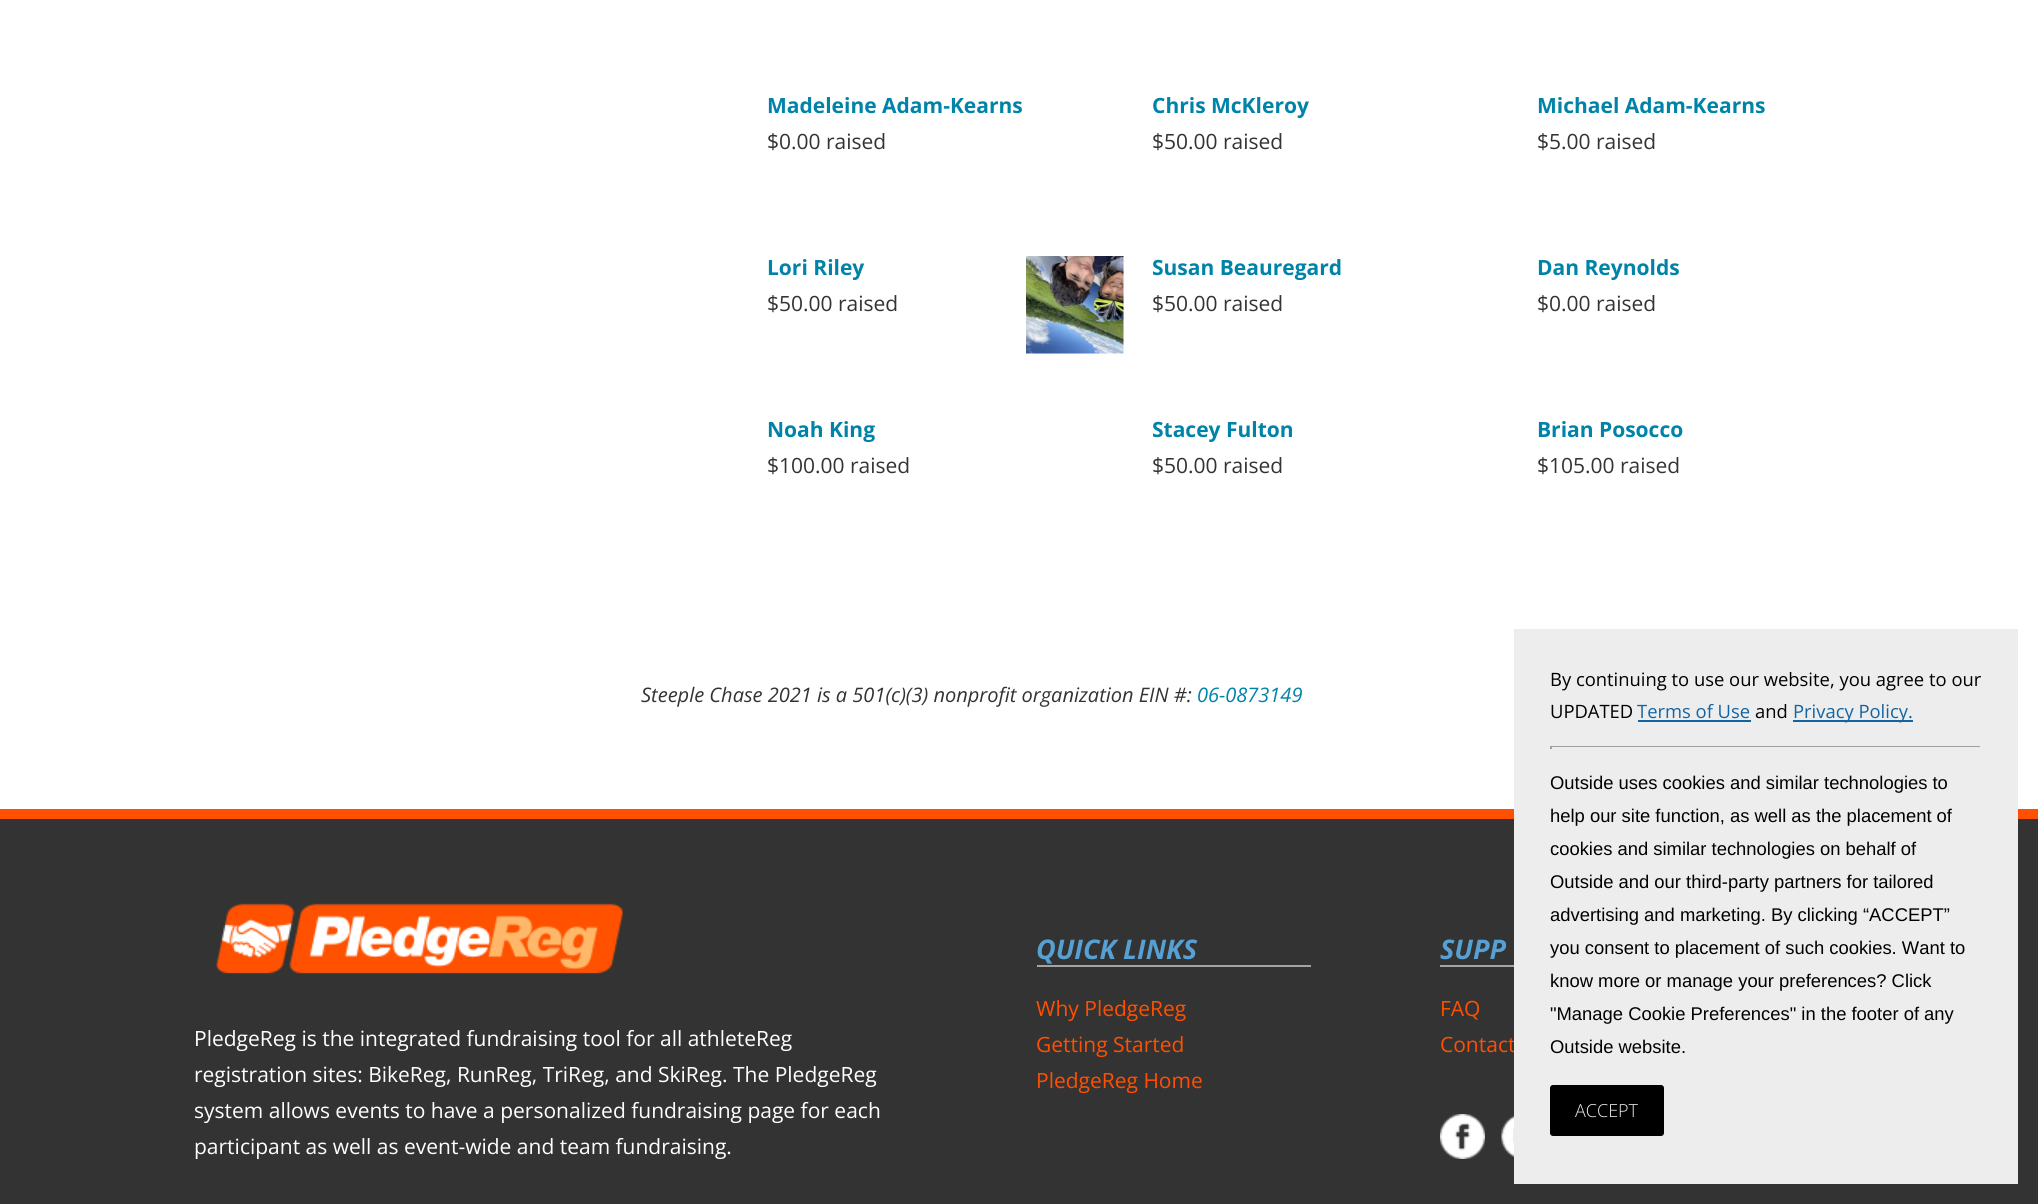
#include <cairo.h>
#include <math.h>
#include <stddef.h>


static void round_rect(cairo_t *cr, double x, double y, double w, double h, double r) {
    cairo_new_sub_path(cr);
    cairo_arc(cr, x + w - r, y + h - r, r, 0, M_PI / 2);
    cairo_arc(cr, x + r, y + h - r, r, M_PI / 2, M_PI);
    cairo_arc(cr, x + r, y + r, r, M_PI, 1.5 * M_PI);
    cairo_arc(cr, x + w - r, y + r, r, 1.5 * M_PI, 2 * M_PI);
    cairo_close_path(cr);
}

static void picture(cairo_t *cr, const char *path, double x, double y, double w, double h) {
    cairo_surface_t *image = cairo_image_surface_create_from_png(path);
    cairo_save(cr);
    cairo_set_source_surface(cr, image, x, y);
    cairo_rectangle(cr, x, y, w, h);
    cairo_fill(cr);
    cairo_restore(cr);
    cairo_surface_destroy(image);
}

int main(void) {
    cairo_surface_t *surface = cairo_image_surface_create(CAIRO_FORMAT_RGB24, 2038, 1204);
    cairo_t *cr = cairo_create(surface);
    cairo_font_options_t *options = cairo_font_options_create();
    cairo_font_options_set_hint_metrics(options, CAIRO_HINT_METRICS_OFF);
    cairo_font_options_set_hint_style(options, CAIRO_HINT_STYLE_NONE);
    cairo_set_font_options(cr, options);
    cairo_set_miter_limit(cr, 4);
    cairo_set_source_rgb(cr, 1, 1, 1);
    cairo_paint(cr);
    cairo_select_font_face(cr, "Open Sans", CAIRO_FONT_SLANT_NORMAL, CAIRO_FONT_WEIGHT_BOLD);
    cairo_set_font_size(cr, 21);
    cairo_set_source_rgb(cr, 0, 0.514, 0.659);
    cairo_move_to(cr, 767, 113);
    cairo_show_text(cr, "Madeleine Adam-Kearns");
    cairo_select_font_face(cr, "Open Sans", CAIRO_FONT_SLANT_NORMAL, CAIRO_FONT_WEIGHT_NORMAL);
    cairo_set_source_rgb(cr, 0.2, 0.2, 0.2);
    cairo_move_to(cr, 767, 149);
    cairo_show_text(cr, "$0.00 raised");
    cairo_select_font_face(cr, "Open Sans", CAIRO_FONT_SLANT_NORMAL, CAIRO_FONT_WEIGHT_BOLD);
    cairo_set_source_rgb(cr, 0, 0.514, 0.659);
    cairo_move_to(cr, 1152, 113);
    cairo_show_text(cr, "Chris McKleroy");
    cairo_select_font_face(cr, "Open Sans", CAIRO_FONT_SLANT_NORMAL, CAIRO_FONT_WEIGHT_NORMAL);
    cairo_set_source_rgb(cr, 0.2, 0.2, 0.2);
    cairo_move_to(cr, 1152, 149);
    cairo_show_text(cr, "$50.00 raised");
    cairo_select_font_face(cr, "Open Sans", CAIRO_FONT_SLANT_NORMAL, CAIRO_FONT_WEIGHT_BOLD);
    cairo_set_source_rgb(cr, 0, 0.514, 0.659);
    cairo_move_to(cr, 1537, 113);
    cairo_show_text(cr, "Michael Adam-Kearns");
    cairo_select_font_face(cr, "Open Sans", CAIRO_FONT_SLANT_NORMAL, CAIRO_FONT_WEIGHT_NORMAL);
    cairo_set_source_rgb(cr, 0.2, 0.2, 0.2);
    cairo_move_to(cr, 1537, 149);
    cairo_show_text(cr, "$5.00 raised");
    cairo_select_font_face(cr, "Open Sans", CAIRO_FONT_SLANT_NORMAL, CAIRO_FONT_WEIGHT_BOLD);
    cairo_set_source_rgb(cr, 0, 0.514, 0.659);
    cairo_move_to(cr, 767, 275);
    cairo_show_text(cr, "Lori Riley");
    cairo_select_font_face(cr, "Open Sans", CAIRO_FONT_SLANT_NORMAL, CAIRO_FONT_WEIGHT_NORMAL);
    cairo_set_source_rgb(cr, 0.2, 0.2, 0.2);
    cairo_move_to(cr, 767, 311);
    cairo_show_text(cr, "$50.00 raised");
    picture(cr, "img1.png", 1026, 256, 98, 98);
    cairo_select_font_face(cr, "Open Sans", CAIRO_FONT_SLANT_NORMAL, CAIRO_FONT_WEIGHT_BOLD);
    cairo_set_source_rgb(cr, 0, 0.514, 0.659);
    cairo_move_to(cr, 1152, 275);
    cairo_show_text(cr, "Susan Beauregard");
    cairo_select_font_face(cr, "Open Sans", CAIRO_FONT_SLANT_NORMAL, CAIRO_FONT_WEIGHT_NORMAL);
    cairo_set_source_rgb(cr, 0.2, 0.2, 0.2);
    cairo_move_to(cr, 1152, 311);
    cairo_show_text(cr, "$50.00 raised");
    cairo_select_font_face(cr, "Open Sans", CAIRO_FONT_SLANT_NORMAL, CAIRO_FONT_WEIGHT_BOLD);
    cairo_set_source_rgb(cr, 0, 0.514, 0.659);
    cairo_move_to(cr, 1537, 275);
    cairo_show_text(cr, "Dan Reynolds");
    cairo_select_font_face(cr, "Open Sans", CAIRO_FONT_SLANT_NORMAL, CAIRO_FONT_WEIGHT_NORMAL);
    cairo_set_source_rgb(cr, 0.2, 0.2, 0.2);
    cairo_move_to(cr, 1537, 311);
    cairo_show_text(cr, "$0.00 raised");
    cairo_select_font_face(cr, "Open Sans", CAIRO_FONT_SLANT_NORMAL, CAIRO_FONT_WEIGHT_BOLD);
    cairo_set_source_rgb(cr, 0, 0.514, 0.659);
    cairo_move_to(cr, 767, 437);
    cairo_show_text(cr, "Noah King");
    cairo_select_font_face(cr, "Open Sans", CAIRO_FONT_SLANT_NORMAL, CAIRO_FONT_WEIGHT_NORMAL);
    cairo_set_source_rgb(cr, 0.2, 0.2, 0.2);
    cairo_move_to(cr, 767, 473);
    cairo_show_text(cr, "$100.00 raised");
    cairo_select_font_face(cr, "Open Sans", CAIRO_FONT_SLANT_NORMAL, CAIRO_FONT_WEIGHT_BOLD);
    cairo_set_source_rgb(cr, 0, 0.514, 0.659);
    cairo_move_to(cr, 1152, 437);
    cairo_show_text(cr, "Stacey Fulton");
    cairo_select_font_face(cr, "Open Sans", CAIRO_FONT_SLANT_NORMAL, CAIRO_FONT_WEIGHT_NORMAL);
    cairo_set_source_rgb(cr, 0.2, 0.2, 0.2);
    cairo_move_to(cr, 1152, 473);
    cairo_show_text(cr, "$50.00 raised");
    cairo_select_font_face(cr, "Open Sans", CAIRO_FONT_SLANT_NORMAL, CAIRO_FONT_WEIGHT_BOLD);
    cairo_set_source_rgb(cr, 0, 0.514, 0.659);
    cairo_move_to(cr, 1537, 437);
    cairo_show_text(cr, "Brian Posocco");
    cairo_select_font_face(cr, "Open Sans", CAIRO_FONT_SLANT_NORMAL, CAIRO_FONT_WEIGHT_NORMAL);
    cairo_set_source_rgb(cr, 0.2, 0.2, 0.2);
    cairo_move_to(cr, 1537, 473);
    cairo_show_text(cr, "$105.00 raised");
    cairo_select_font_face(cr, "Open Sans", CAIRO_FONT_SLANT_ITALIC, CAIRO_FONT_WEIGHT_NORMAL);
    cairo_set_font_size(cr, 20);
    cairo_move_to(cr, 641, 702);
    cairo_show_text(cr, "Steeple Chase 2021 is a 501(c)(3) nonprofit organization EIN #:");
    cairo_set_source_rgb(cr, 0, 0.514, 0.659);
    cairo_move_to(cr, 1197, 702);
    cairo_show_text(cr, "06-0873149");
    cairo_set_source_rgb(cr, 0.2, 0.2, 0.2);
    cairo_rectangle(cr, 0, 819, 2038, 385);
    cairo_fill(cr);
    cairo_set_source_rgb(cr, 0.996, 0.314, 0);
    cairo_rectangle(cr, 0, 809, 2038, 10);
    cairo_fill(cr);
    cairo_set_source_rgb(cr, 0.643, 0.643, 0.643);
    cairo_rectangle(cr, 1037, 965, 274, 2);
    cairo_fill(cr);
    cairo_select_font_face(cr, "Open Sans", CAIRO_FONT_SLANT_ITALIC, CAIRO_FONT_WEIGHT_BOLD);
    cairo_set_font_size(cr, 27);
    cairo_set_source_rgb(cr, 0.337, 0.627, 0.827);
    cairo_move_to(cr, 1036, 959);
    cairo_show_text(cr, "QUICK LINKS");
    cairo_select_font_face(cr, "Open Sans", CAIRO_FONT_SLANT_NORMAL, CAIRO_FONT_WEIGHT_NORMAL);
    cairo_set_font_size(cr, 21);
    cairo_set_source_rgb(cr, 0.996, 0.314, 0);
    cairo_move_to(cr, 1036, 1016);
    cairo_show_text(cr, "Why PledgeReg");
    cairo_move_to(cr, 1036, 1052);
    cairo_show_text(cr, "Getting Started");
    cairo_move_to(cr, 1036, 1088);
    cairo_show_text(cr, "PledgeReg Home");
    cairo_set_source_rgb(cr, 0.643, 0.643, 0.643);
    cairo_rectangle(cr, 1440, 965, 74, 2);
    cairo_fill(cr);
    cairo_select_font_face(cr, "Open Sans", CAIRO_FONT_SLANT_ITALIC, CAIRO_FONT_WEIGHT_BOLD);
    cairo_set_font_size(cr, 27);
    cairo_set_source_rgb(cr, 0.337, 0.627, 0.827);
    cairo_move_to(cr, 1440, 959);
    cairo_show_text(cr, "SUPP");
    cairo_select_font_face(cr, "Open Sans", CAIRO_FONT_SLANT_NORMAL, CAIRO_FONT_WEIGHT_NORMAL);
    cairo_set_font_size(cr, 21);
    cairo_set_source_rgb(cr, 0.996, 0.314, 0);
    cairo_move_to(cr, 1440, 1016);
    cairo_show_text(cr, "FAQ");
    cairo_move_to(cr, 1440, 1052);
    cairo_show_text(cr, "Contact");
    picture(cr, "img2.png", 1440, 1114, 45, 45);
    picture(cr, "img3.png", 1501, 1114, 13, 45);
    picture(cr, "img4.png", 215, 903, 408, 71);
    cairo_set_source_rgb(cr, 1, 1, 1);
    cairo_move_to(cr, 194, 1046);
    cairo_show_text(cr, "PledgeReg is the integrated fundraising tool for all athleteReg");
    cairo_move_to(cr, 194, 1082);
    cairo_show_text(cr, "registration sites: BikeReg, RunReg, TriReg, and SkiReg. The PledgeReg");
    cairo_move_to(cr, 194, 1118);
    cairo_show_text(cr, "system allows events to have a personalized fundraising page for each");
    cairo_move_to(cr, 194, 1154);
    cairo_show_text(cr, "participant as well as event-wide and team fundraising.");
    cairo_set_source_rgb(cr, 0.929, 0.929, 0.929);
    cairo_rectangle(cr, 1514, 629, 504, 555);
    cairo_fill(cr);
    cairo_set_font_size(cr, 18.4);
    cairo_set_source_rgb(cr, 0, 0, 0);
    cairo_move_to(cr, 1550, 686);
    cairo_show_text(cr, "By continuing to use our website, you agree to our");
    cairo_move_to(cr, 1550, 718);
    cairo_show_text(cr, "UPDATED");
    cairo_set_source_rgb(cr, 0.071, 0.392, 0.639);
    cairo_move_to(cr, 1637, 718);
    cairo_show_text(cr, "Terms of Use");
    cairo_rectangle(cr, 1638, 720, 113, 2);
    cairo_fill(cr);
    cairo_set_source_rgb(cr, 0, 0, 0);
    cairo_move_to(cr, 1755, 718);
    cairo_show_text(cr, "and");
    cairo_set_source_rgb(cr, 0.071, 0.392, 0.639);
    cairo_rectangle(cr, 1793, 720, 120, 2);
    cairo_fill(cr);
    cairo_move_to(cr, 1793, 718);
    cairo_show_text(cr, "Privacy Policy.");
    cairo_set_source_rgb(cr, 0.624, 0.624, 0.624);
    cairo_rectangle(cr, 1550, 746, 432, 1);
    cairo_fill(cr);
    cairo_set_source_rgb(cr, 0.933, 0.933, 0.933);
    cairo_rectangle(cr, 1980, 746, 2, 3);
    cairo_fill(cr);
    cairo_set_source_rgb(cr, 0.624, 0.624, 0.624);
    cairo_rectangle(cr, 1550, 746, 2, 3);
    cairo_fill(cr);
    cairo_select_font_face(cr, "Liberation Sans", CAIRO_FONT_SLANT_NORMAL, CAIRO_FONT_WEIGHT_NORMAL);
    cairo_set_source_rgb(cr, 0, 0, 0);
    cairo_move_to(cr, 1550, 789);
    cairo_show_text(cr, "Outside uses cookies and similar technologies to");
    cairo_move_to(cr, 1550, 822);
    cairo_show_text(cr, "help our site function, as well as the placement of");
    cairo_move_to(cr, 1550, 855);
    cairo_show_text(cr, "cookies and similar technologies on behalf of");
    cairo_move_to(cr, 1550, 888);
    cairo_show_text(cr, "Outside and our third-party partners for tailored");
    cairo_move_to(cr, 1550, 921);
    cairo_show_text(cr, "advertising and marketing. By clicking “ACCEPT”");
    cairo_move_to(cr, 1550, 954);
    cairo_show_text(cr, "you consent to placement of such cookies. Want to");
    cairo_move_to(cr, 1550, 987);
    cairo_show_text(cr, "know more or manage your preferences? Click");
    cairo_move_to(cr, 1550, 1020);
    cairo_show_text(cr, "\"Manage Cookie Preferences\" in the footer of any");
    cairo_move_to(cr, 1550, 1053);
    cairo_show_text(cr, "Outside website.");
    round_rect(cr, 1551, 1086, 112, 49, 2);
    cairo_fill_preserve(cr);
    cairo_stroke(cr);
    cairo_select_font_face(cr, "Open Sans Light", CAIRO_FONT_SLANT_NORMAL, CAIRO_FONT_WEIGHT_NORMAL);
    cairo_set_font_size(cr, 18);
    cairo_set_source_rgb(cr, 0.929, 0.929, 0.929);
    cairo_move_to(cr, 1575, 1117);
    cairo_show_text(cr, "ACCEPT");
    cairo_surface_write_to_png(surface, "page.png");
    cairo_font_options_destroy(options);
    cairo_destroy(cr);
    cairo_surface_destroy(surface);
    return 0;
}
